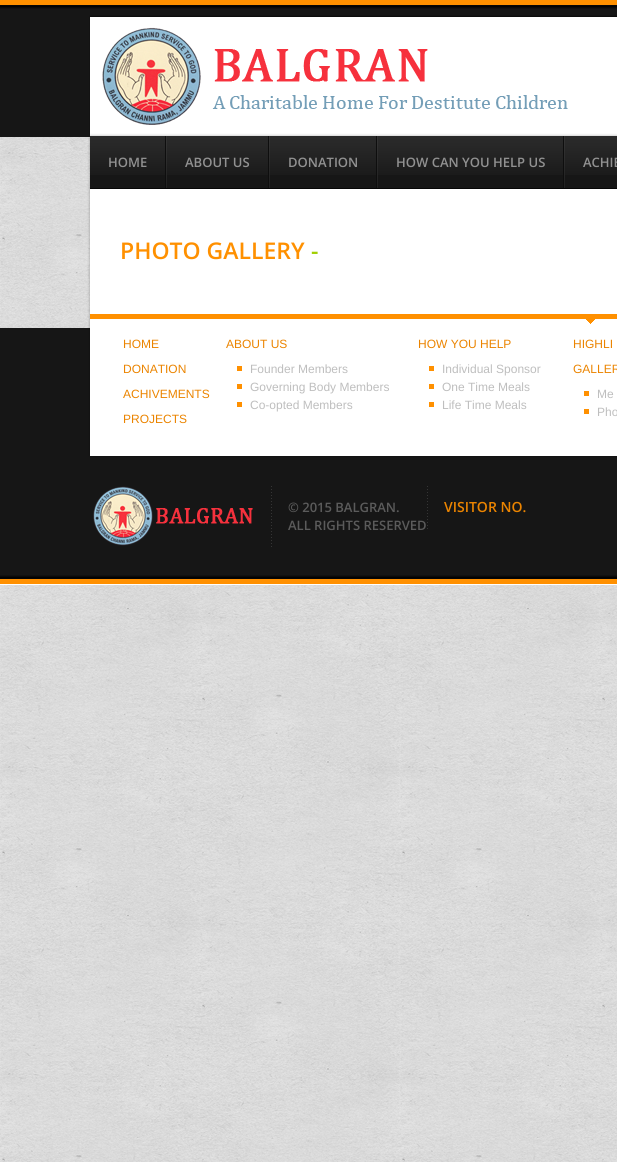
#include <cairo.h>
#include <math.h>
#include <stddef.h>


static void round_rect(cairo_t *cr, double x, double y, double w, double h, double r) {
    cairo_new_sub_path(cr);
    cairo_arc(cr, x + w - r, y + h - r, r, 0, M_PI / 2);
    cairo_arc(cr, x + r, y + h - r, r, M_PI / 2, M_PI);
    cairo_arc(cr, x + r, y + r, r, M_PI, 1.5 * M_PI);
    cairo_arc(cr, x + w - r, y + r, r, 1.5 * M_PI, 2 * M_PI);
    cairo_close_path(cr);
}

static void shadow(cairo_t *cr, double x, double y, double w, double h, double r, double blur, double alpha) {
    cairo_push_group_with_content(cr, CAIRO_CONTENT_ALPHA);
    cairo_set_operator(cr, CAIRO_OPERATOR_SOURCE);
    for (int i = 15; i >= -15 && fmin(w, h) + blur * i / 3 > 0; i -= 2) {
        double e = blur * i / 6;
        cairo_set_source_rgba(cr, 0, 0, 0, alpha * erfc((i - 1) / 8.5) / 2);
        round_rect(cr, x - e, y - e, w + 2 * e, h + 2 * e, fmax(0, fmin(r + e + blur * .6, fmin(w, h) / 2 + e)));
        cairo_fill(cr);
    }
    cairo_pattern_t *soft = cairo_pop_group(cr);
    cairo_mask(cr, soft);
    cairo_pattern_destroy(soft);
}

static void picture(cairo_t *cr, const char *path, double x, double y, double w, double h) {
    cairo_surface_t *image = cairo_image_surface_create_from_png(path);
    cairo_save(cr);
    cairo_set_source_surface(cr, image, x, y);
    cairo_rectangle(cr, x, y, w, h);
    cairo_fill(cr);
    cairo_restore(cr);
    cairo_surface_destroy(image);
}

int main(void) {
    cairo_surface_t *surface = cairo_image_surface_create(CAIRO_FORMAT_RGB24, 617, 1162);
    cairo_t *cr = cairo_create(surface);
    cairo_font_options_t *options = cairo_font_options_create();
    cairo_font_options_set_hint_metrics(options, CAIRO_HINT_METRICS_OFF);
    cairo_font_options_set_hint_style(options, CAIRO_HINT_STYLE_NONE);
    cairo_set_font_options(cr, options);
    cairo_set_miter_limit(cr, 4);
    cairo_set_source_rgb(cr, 1, 1, 1);
    cairo_paint(cr);
    picture(cr, "img1.png", 0, 137, 617, 1025);
    picture(cr, "img2.png", 0, 0, 617, 137);
    cairo_set_source_rgb(cr, 0, 0, 0);
    shadow(cr, 90, 16, 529, 119, 0, 0.5, 0.5);
    cairo_set_source_rgb(cr, 1, 1, 1);
    cairo_rectangle(cr, 90, 17, 527, 119);
    cairo_fill(cr);
    picture(cr, "img3.png", 102, 27, 466, 98);
    cairo_set_source_rgb(cr, 0.086, 0.086, 0.086);
    cairo_rectangle(cr, 0, 328, 617, 247);
    cairo_fill(cr);
    cairo_set_source_rgb(cr, 0, 0, 0);
    shadow(cr, 90, 136, 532, 320, 0, 1.5, 0.3);
    cairo_set_source_rgb(cr, 1, 1, 1);
    cairo_rectangle(cr, 90, 189, 527, 267);
    cairo_fill(cr);
    cairo_set_source_rgb(cr, 0.086, 0.086, 0.086);
    cairo_rectangle(cr, 90, 175, 527, 13);
    cairo_fill(cr);
    picture(cr, "img4.png", 90, 136, 527, 39);
    cairo_set_source_rgb(cr, 0.027, 0.027, 0.027);
    cairo_rectangle(cr, 90, 188, 527, 1);
    cairo_fill(cr);
    picture(cr, "img5.png", 165, 136, 2, 52);
    cairo_select_font_face(cr, "Open Sans SemiBold", CAIRO_FONT_SLANT_NORMAL, CAIRO_FONT_WEIGHT_NORMAL);
    cairo_set_font_size(cr, 13);
    cairo_set_source_rgb(cr, 0.569, 0.569, 0.569);
    cairo_move_to(cr, 108, 167);
    cairo_show_text(cr, "HOME");
    picture(cr, "img5.png", 268, 136, 2, 52);
    cairo_move_to(cr, 185, 167);
    cairo_show_text(cr, "ABOUT US");
    picture(cr, "img5.png", 376, 136, 2, 52);
    cairo_move_to(cr, 288, 167);
    cairo_show_text(cr, "DONATION");
    picture(cr, "img5.png", 563, 136, 2, 52);
    cairo_move_to(cr, 396, 167);
    cairo_show_text(cr, "HOW CAN YOU HELP US");
    cairo_move_to(cr, 583, 167);
    cairo_show_text(cr, "ACHIE");
    cairo_set_font_size(cr, 23);
    cairo_set_source_rgb(cr, 1, 0.565, 0);
    cairo_move_to(cr, 120, 259);
    cairo_show_text(cr, "PHOTO GALLERY");
    cairo_set_source_rgb(cr, 0.631, 0.812, 0);
    cairo_move_to(cr, 311, 259);
    cairo_show_text(cr, "-");
    cairo_set_source_rgb(cr, 1, 0.565, 0);
    cairo_rectangle(cr, 90, 314, 527, 5);
    cairo_fill(cr);
    picture(cr, "img6.png", 586, 319, 9, 5);
    cairo_select_font_face(cr, "Liberation Sans", CAIRO_FONT_SLANT_NORMAL, CAIRO_FONT_WEIGHT_NORMAL);
    cairo_set_font_size(cr, 12);
    cairo_set_source_rgb(cr, 0.918, 0.518, 0);
    cairo_move_to(cr, 123, 348);
    cairo_show_text(cr, "HOME");
    cairo_move_to(cr, 123, 373);
    cairo_show_text(cr, "DONATION");
    cairo_move_to(cr, 123, 398);
    cairo_show_text(cr, "ACHIVEMENTS");
    cairo_move_to(cr, 123, 423);
    cairo_show_text(cr, "PROJECTS");
    cairo_move_to(cr, 226, 348);
    cairo_show_text(cr, "ABOUT US");
    cairo_set_source_rgb(cr, 1, 0.565, 0);
    cairo_rectangle(cr, 237, 366, 5, 5);
    cairo_fill(cr);
    cairo_set_source_rgb(cr, 0.745, 0.745, 0.745);
    cairo_move_to(cr, 250, 373);
    cairo_show_text(cr, "Founder Members");
    cairo_set_source_rgb(cr, 1, 0.565, 0);
    cairo_rectangle(cr, 237, 384, 5, 5);
    cairo_fill(cr);
    cairo_set_source_rgb(cr, 0.745, 0.745, 0.745);
    cairo_move_to(cr, 250, 391);
    cairo_show_text(cr, "Governing Body Members");
    cairo_set_source_rgb(cr, 1, 0.565, 0);
    cairo_rectangle(cr, 237, 402, 5, 5);
    cairo_fill(cr);
    cairo_set_source_rgb(cr, 0.745, 0.745, 0.745);
    cairo_move_to(cr, 250, 409);
    cairo_show_text(cr, "Co-opted Members");
    cairo_set_source_rgb(cr, 0.918, 0.518, 0);
    cairo_move_to(cr, 418, 348);
    cairo_show_text(cr, "HOW YOU HELP");
    cairo_set_source_rgb(cr, 1, 0.565, 0);
    cairo_rectangle(cr, 429, 366, 5, 5);
    cairo_fill(cr);
    cairo_set_source_rgb(cr, 0.745, 0.745, 0.745);
    cairo_move_to(cr, 442, 373);
    cairo_show_text(cr, "Individual Sponsor");
    cairo_set_source_rgb(cr, 1, 0.565, 0);
    cairo_rectangle(cr, 429, 384, 5, 5);
    cairo_fill(cr);
    cairo_set_source_rgb(cr, 0.745, 0.745, 0.745);
    cairo_move_to(cr, 442, 391);
    cairo_show_text(cr, "One Time Meals");
    cairo_set_source_rgb(cr, 1, 0.565, 0);
    cairo_rectangle(cr, 429, 402, 5, 5);
    cairo_fill(cr);
    cairo_set_source_rgb(cr, 0.745, 0.745, 0.745);
    cairo_move_to(cr, 442, 409);
    cairo_show_text(cr, "Life Time Meals");
    cairo_set_source_rgb(cr, 0.918, 0.518, 0);
    cairo_move_to(cr, 573, 348);
    cairo_show_text(cr, "HIGHLI");
    cairo_move_to(cr, 573, 373);
    cairo_show_text(cr, "GALLER");
    cairo_set_source_rgb(cr, 1, 0.565, 0);
    cairo_rectangle(cr, 584, 391, 5, 5);
    cairo_fill(cr);
    cairo_set_source_rgb(cr, 0.745, 0.745, 0.745);
    cairo_move_to(cr, 597, 398);
    cairo_show_text(cr, "Me");
    cairo_set_source_rgb(cr, 1, 0.565, 0);
    cairo_rectangle(cr, 584, 409, 5, 5);
    cairo_fill(cr);
    cairo_set_source_rgb(cr, 0.745, 0.745, 0.745);
    cairo_move_to(cr, 597, 416);
    cairo_show_text(cr, "Pho");
    picture(cr, "img7.png", 0, 575, 617, 10);
    picture(cr, "img8.png", 93, 486, 160, 60);
    picture(cr, "img9.png", 271, 486, 1, 61);
    cairo_select_font_face(cr, "Open Sans SemiBold", CAIRO_FONT_SLANT_NORMAL, CAIRO_FONT_WEIGHT_NORMAL);
    cairo_set_font_size(cr, 13);
    cairo_set_source_rgb(cr, 0.357, 0.357, 0.357);
    cairo_move_to(cr, 288, 512);
    cairo_show_text(cr, "© 2015 BALGRAN.");
    cairo_move_to(cr, 288, 530);
    cairo_show_text(cr, "ALL RIGHTS RESERVED");
    picture(cr, "img10.png", 427, 486, 1, 43);
    cairo_set_font_size(cr, 14);
    cairo_set_source_rgb(cr, 0.918, 0.518, 0);
    cairo_move_to(cr, 444, 512);
    cairo_show_text(cr, "VISITOR NO.");
    cairo_surface_write_to_png(surface, "page.png");
    cairo_font_options_destroy(options);
    cairo_destroy(cr);
    cairo_surface_destroy(surface);
    return 0;
}
